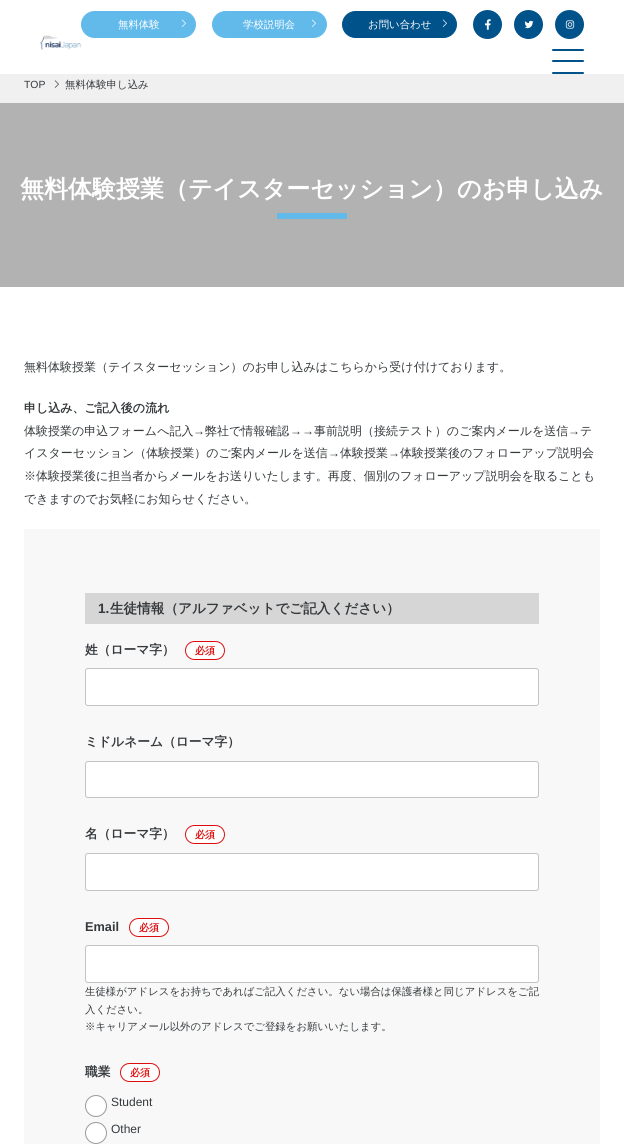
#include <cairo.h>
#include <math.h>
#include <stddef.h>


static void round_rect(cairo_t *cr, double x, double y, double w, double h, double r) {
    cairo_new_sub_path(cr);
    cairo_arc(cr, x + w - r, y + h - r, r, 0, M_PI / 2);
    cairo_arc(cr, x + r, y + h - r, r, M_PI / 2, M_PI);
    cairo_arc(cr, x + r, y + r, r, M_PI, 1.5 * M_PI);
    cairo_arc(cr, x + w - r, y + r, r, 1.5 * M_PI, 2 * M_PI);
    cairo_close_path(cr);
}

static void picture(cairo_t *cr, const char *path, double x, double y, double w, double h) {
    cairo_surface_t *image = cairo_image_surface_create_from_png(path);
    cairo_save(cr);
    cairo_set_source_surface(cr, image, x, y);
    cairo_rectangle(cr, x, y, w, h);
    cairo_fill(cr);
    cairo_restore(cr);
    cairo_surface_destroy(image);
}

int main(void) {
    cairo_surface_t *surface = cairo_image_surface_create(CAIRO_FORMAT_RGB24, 624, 1144);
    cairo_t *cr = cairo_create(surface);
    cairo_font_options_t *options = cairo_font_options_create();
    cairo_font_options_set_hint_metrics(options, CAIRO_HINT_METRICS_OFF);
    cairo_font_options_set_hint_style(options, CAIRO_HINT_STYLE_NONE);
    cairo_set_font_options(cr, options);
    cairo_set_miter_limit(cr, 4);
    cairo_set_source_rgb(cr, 1, 1, 1);
    cairo_paint(cr);
    picture(cr, "img6.png", 40, 35, 42, 15);
    cairo_set_source_rgb(cr, 0.384, 0.729, 0.918);
    round_rect(cr, 81.5, 11.5, 114, 26, 13);
    cairo_fill_preserve(cr);
    cairo_set_line_width(cr, 1);
    cairo_stroke(cr);
    cairo_select_font_face(cr, "WenQuanYi Zen Hei Medium", CAIRO_FONT_SLANT_NORMAL, CAIRO_FONT_WEIGHT_NORMAL);
    cairo_set_font_size(cr, 10.4);
    cairo_set_source_rgb(cr, 1, 1, 1);
    cairo_move_to(cr, 118, 28);
    cairo_show_text(cr, "無料体験");
    picture(cr, "img1.png", 181, 19, 5, 8);
    cairo_set_source_rgb(cr, 0.384, 0.729, 0.918);
    round_rect(cr, 212.5, 11.5, 114, 26, 13);
    cairo_fill_preserve(cr);
    cairo_stroke(cr);
    cairo_set_source_rgb(cr, 1, 1, 1);
    cairo_move_to(cr, 243, 28);
    cairo_show_text(cr, "学校説明会");
    picture(cr, "img1.png", 311, 19, 5, 8);
    cairo_set_source_rgb(cr, 0, 0.322, 0.541);
    round_rect(cr, 342.5, 11.5, 114, 26, 13);
    cairo_fill_preserve(cr);
    cairo_stroke(cr);
    cairo_set_source_rgb(cr, 1, 1, 1);
    cairo_move_to(cr, 368, 28);
    cairo_show_text(cr, "お問い合わせ");
    picture(cr, "img2.png", 442, 19, 5, 8);
    cairo_set_source_rgb(cr, 0, 0.322, 0.541);
    cairo_arc(cr, 487.5, 24.5, 14.5, 0, 2 * M_PI);
    cairo_fill(cr);
    picture(cr, "img3.png", 485, 19, 6, 11);
    cairo_arc(cr, 528.5, 24.5, 14.5, 0, 2 * M_PI);
    cairo_fill(cr);
    picture(cr, "img4.png", 524, 20, 10, 9);
    cairo_arc(cr, 569.5, 24.5, 14.5, 0, 2 * M_PI);
    cairo_fill(cr);
    picture(cr, "img5.png", 565, 20, 10, 9);
    round_rect(cr, 552, 49, 32, 2, 1);
    cairo_fill(cr);
    round_rect(cr, 552, 60, 32, 2, 1);
    cairo_fill(cr);
    round_rect(cr, 552, 72, 32, 2, 1);
    cairo_fill(cr);
    cairo_set_source_rgb(cr, 0.941, 0.941, 0.941);
    cairo_rectangle(cr, 0, 74, 624, 29);
    cairo_fill(cr);
    cairo_select_font_face(cr, "Liberation Sans", CAIRO_FONT_SLANT_NORMAL, CAIRO_FONT_WEIGHT_NORMAL);
    cairo_set_source_rgb(cr, 0.208, 0.224, 0.235);
    cairo_move_to(cr, 24, 88);
    cairo_show_text(cr, "TOP");
    picture(cr, "img7.png", 54, 80, 5, 8);
    cairo_select_font_face(cr, "WenQuanYi Zen Hei Medium", CAIRO_FONT_SLANT_NORMAL, CAIRO_FONT_WEIGHT_NORMAL);
    cairo_move_to(cr, 65, 88);
    cairo_show_text(cr, "無料体験申し込み");
    cairo_set_source_rgb(cr, 0.698, 0.698, 0.698);
    cairo_rectangle(cr, 0, 103, 624, 184);
    cairo_fill(cr);
    cairo_select_font_face(cr, "WenQuanYi Zen Hei", CAIRO_FONT_SLANT_NORMAL, CAIRO_FONT_WEIGHT_BOLD);
    cairo_set_font_size(cr, 24);
    cairo_set_source_rgb(cr, 1, 1, 1);
    cairo_move_to(cr, 20, 197);
    cairo_show_text(cr, "無料体験授業（テイスターセッション）のお申し込み");
    cairo_set_source_rgb(cr, 0.384, 0.729, 0.918);
    cairo_rectangle(cr, 277, 213, 70, 6);
    cairo_fill(cr);
    cairo_select_font_face(cr, "WenQuanYi Zen Hei Medium", CAIRO_FONT_SLANT_NORMAL, CAIRO_FONT_WEIGHT_NORMAL);
    cairo_set_font_size(cr, 12);
    cairo_set_source_rgb(cr, 0.208, 0.224, 0.235);
    cairo_move_to(cr, 24, 371);
    cairo_show_text(cr, "無料体験授業（テイスターセッション）のお申し込みはこちらから受け付けております。");
    cairo_select_font_face(cr, "WenQuanYi Zen Hei", CAIRO_FONT_SLANT_NORMAL, CAIRO_FONT_WEIGHT_BOLD);
    cairo_move_to(cr, 24, 412);
    cairo_show_text(cr, "申し込み、ご記入後の流れ");
    cairo_select_font_face(cr, "WenQuanYi Zen Hei Medium", CAIRO_FONT_SLANT_NORMAL, CAIRO_FONT_WEIGHT_NORMAL);
    cairo_move_to(cr, 24, 435);
    cairo_show_text(cr, "体験授業の申込フォームへ記入");
    cairo_select_font_face(cr, "Liberation Sans", CAIRO_FONT_SLANT_NORMAL, CAIRO_FONT_WEIGHT_NORMAL);
    cairo_move_to(cr, 193, 435);
    cairo_show_text(cr, "→");
    cairo_select_font_face(cr, "WenQuanYi Zen Hei Medium", CAIRO_FONT_SLANT_NORMAL, CAIRO_FONT_WEIGHT_NORMAL);
    cairo_move_to(cr, 205, 435);
    cairo_show_text(cr, "弊社で情報確認");
    cairo_select_font_face(cr, "Liberation Sans", CAIRO_FONT_SLANT_NORMAL, CAIRO_FONT_WEIGHT_NORMAL);
    cairo_move_to(cr, 290, 435);
    cairo_show_text(cr, "→→");
    cairo_select_font_face(cr, "WenQuanYi Zen Hei Medium", CAIRO_FONT_SLANT_NORMAL, CAIRO_FONT_WEIGHT_NORMAL);
    cairo_move_to(cr, 314, 435);
    cairo_show_text(cr, "事前説明（接続テスト）のご案内メールを送信");
    cairo_select_font_face(cr, "Liberation Sans", CAIRO_FONT_SLANT_NORMAL, CAIRO_FONT_WEIGHT_NORMAL);
    cairo_move_to(cr, 568, 435);
    cairo_show_text(cr, "→");
    cairo_select_font_face(cr, "WenQuanYi Zen Hei Medium", CAIRO_FONT_SLANT_NORMAL, CAIRO_FONT_WEIGHT_NORMAL);
    cairo_move_to(cr, 580, 435);
    cairo_show_text(cr, "テ");
    cairo_move_to(cr, 24, 457);
    cairo_show_text(cr, "イスターセッション（体験授業）のご案内メールを送信");
    cairo_select_font_face(cr, "Liberation Sans", CAIRO_FONT_SLANT_NORMAL, CAIRO_FONT_WEIGHT_NORMAL);
    cairo_move_to(cr, 328, 457);
    cairo_show_text(cr, "→");
    cairo_select_font_face(cr, "WenQuanYi Zen Hei Medium", CAIRO_FONT_SLANT_NORMAL, CAIRO_FONT_WEIGHT_NORMAL);
    cairo_move_to(cr, 340, 457);
    cairo_show_text(cr, "体験授業");
    cairo_select_font_face(cr, "Liberation Sans", CAIRO_FONT_SLANT_NORMAL, CAIRO_FONT_WEIGHT_NORMAL);
    cairo_move_to(cr, 388, 457);
    cairo_show_text(cr, "→");
    cairo_select_font_face(cr, "WenQuanYi Zen Hei Medium", CAIRO_FONT_SLANT_NORMAL, CAIRO_FONT_WEIGHT_NORMAL);
    cairo_move_to(cr, 400, 457);
    cairo_show_text(cr, "体験授業後のフォローアップ説明会");
    cairo_move_to(cr, 24, 480);
    cairo_show_text(cr, "※体験授業後に担当者からメールをお送りいたします。再度、個別のフォローアップ説明会を取ることも");
    cairo_move_to(cr, 24, 503);
    cairo_show_text(cr, "できますのでお気軽にお知らせください。");
    cairo_set_source_rgb(cr, 0.969, 0.969, 0.969);
    cairo_rectangle(cr, 24, 529, 576, 615);
    cairo_fill(cr);
    cairo_set_source_rgb(cr, 0.839, 0.839, 0.839);
    cairo_rectangle(cr, 85, 593, 454, 31);
    cairo_fill(cr);
    cairo_select_font_face(cr, "Liberation Sans", CAIRO_FONT_SLANT_NORMAL, CAIRO_FONT_WEIGHT_BOLD);
    cairo_set_font_size(cr, 13.6);
    cairo_set_source_rgb(cr, 0.208, 0.224, 0.235);
    cairo_move_to(cr, 98, 613);
    cairo_show_text(cr, "1.");
    cairo_select_font_face(cr, "WenQuanYi Zen Hei", CAIRO_FONT_SLANT_NORMAL, CAIRO_FONT_WEIGHT_BOLD);
    cairo_move_to(cr, 110, 613);
    cairo_show_text(cr, "生徒情報（アルファベットでご記入ください）");
    cairo_set_font_size(cr, 12.75);
    cairo_move_to(cr, 85, 654);
    cairo_show_text(cr, "姓（ローマ字）");
    cairo_set_source_rgb(cr, 1, 1, 1);
    round_rect(cr, 185.5, 641.5, 39, 18, 9);
    cairo_fill_preserve(cr);
    cairo_set_source_rgb(cr, 0.871, 0.051, 0.051);
    cairo_stroke(cr);
    cairo_set_font_size(cr, 10);
    cairo_move_to(cr, 195, 654);
    cairo_show_text(cr, "必須");
    cairo_set_source_rgb(cr, 1, 1, 1);
    round_rect(cr, 85.5, 668.5, 453, 37, 2.5);
    cairo_fill_preserve(cr);
    cairo_set_source_rgb(cr, 0.765, 0.765, 0.765);
    cairo_stroke(cr);
    cairo_set_font_size(cr, 12.75);
    cairo_set_source_rgb(cr, 0.208, 0.224, 0.235);
    cairo_move_to(cr, 85, 746);
    cairo_show_text(cr, "ミドルネーム（ローマ字）");
    cairo_set_source_rgb(cr, 1, 1, 1);
    round_rect(cr, 85.5, 761.5, 453, 36, 2.5);
    cairo_fill_preserve(cr);
    cairo_set_source_rgb(cr, 0.765, 0.765, 0.765);
    cairo_stroke(cr);
    cairo_set_source_rgb(cr, 0.208, 0.224, 0.235);
    cairo_move_to(cr, 85, 838);
    cairo_show_text(cr, "名（ローマ字）");
    cairo_set_source_rgb(cr, 1, 1, 1);
    round_rect(cr, 185.5, 825.5, 39, 18, 9);
    cairo_fill_preserve(cr);
    cairo_set_source_rgb(cr, 0.871, 0.051, 0.051);
    cairo_stroke(cr);
    cairo_set_font_size(cr, 10);
    cairo_move_to(cr, 195, 838);
    cairo_show_text(cr, "必須");
    cairo_set_source_rgb(cr, 1, 1, 1);
    round_rect(cr, 85.5, 853.5, 453, 37, 2.5);
    cairo_fill_preserve(cr);
    cairo_set_source_rgb(cr, 0.765, 0.765, 0.765);
    cairo_stroke(cr);
    cairo_select_font_face(cr, "Liberation Sans", CAIRO_FONT_SLANT_NORMAL, CAIRO_FONT_WEIGHT_BOLD);
    cairo_set_font_size(cr, 12.75);
    cairo_set_source_rgb(cr, 0.208, 0.224, 0.235);
    cairo_move_to(cr, 85, 931);
    cairo_show_text(cr, "Email");
    cairo_set_source_rgb(cr, 1, 1, 1);
    round_rect(cr, 129.5, 918.5, 39, 18, 9);
    cairo_fill_preserve(cr);
    cairo_set_source_rgb(cr, 0.871, 0.051, 0.051);
    cairo_stroke(cr);
    cairo_select_font_face(cr, "WenQuanYi Zen Hei", CAIRO_FONT_SLANT_NORMAL, CAIRO_FONT_WEIGHT_BOLD);
    cairo_set_font_size(cr, 10);
    cairo_move_to(cr, 139, 931);
    cairo_show_text(cr, "必須");
    cairo_set_source_rgb(cr, 1, 1, 1);
    round_rect(cr, 85.5, 945.5, 453, 37, 2.5);
    cairo_fill_preserve(cr);
    cairo_set_source_rgb(cr, 0.765, 0.765, 0.765);
    cairo_stroke(cr);
    cairo_select_font_face(cr, "WenQuanYi Zen Hei Medium", CAIRO_FONT_SLANT_NORMAL, CAIRO_FONT_WEIGHT_NORMAL);
    cairo_set_font_size(cr, 10.4);
    cairo_set_source_rgb(cr, 0.208, 0.224, 0.235);
    cairo_move_to(cr, 85, 995);
    cairo_show_text(cr, "生徒様がアドレスをお持ちであればご記入ください。ない場合は保護者様と同じアドレスをご記");
    cairo_move_to(cr, 85, 1013);
    cairo_show_text(cr, "入ください。");
    cairo_move_to(cr, 85, 1030);
    cairo_show_text(cr, "※キャリアメール以外のアドレスでご登録をお願いいたします。");
    cairo_select_font_face(cr, "WenQuanYi Zen Hei", CAIRO_FONT_SLANT_NORMAL, CAIRO_FONT_WEIGHT_BOLD);
    cairo_set_font_size(cr, 12.75);
    cairo_move_to(cr, 85, 1076);
    cairo_show_text(cr, "職業");
    cairo_set_source_rgb(cr, 1, 1, 1);
    round_rect(cr, 120.5, 1063.5, 39, 18, 9);
    cairo_fill_preserve(cr);
    cairo_set_source_rgb(cr, 0.871, 0.051, 0.051);
    cairo_stroke(cr);
    cairo_set_font_size(cr, 10);
    cairo_move_to(cr, 130, 1076);
    cairo_show_text(cr, "必須");
    cairo_set_source_rgb(cr, 1, 1, 1);
    cairo_new_path(cr);
    cairo_arc(cr, 96, 1106, 10.5, 0, 2 * M_PI);
    cairo_fill_preserve(cr);
    cairo_set_source_rgb(cr, 0.6, 0.6, 0.6);
    cairo_stroke(cr);
    cairo_select_font_face(cr, "Liberation Sans", CAIRO_FONT_SLANT_NORMAL, CAIRO_FONT_WEIGHT_NORMAL);
    cairo_set_font_size(cr, 12);
    cairo_set_source_rgb(cr, 0.208, 0.224, 0.235);
    cairo_move_to(cr, 111, 1106);
    cairo_show_text(cr, "Student");
    cairo_set_source_rgb(cr, 1, 1, 1);
    cairo_new_path(cr);
    cairo_arc(cr, 96, 1133, 10.5, 0, 2 * M_PI);
    cairo_fill_preserve(cr);
    cairo_set_source_rgb(cr, 0.6, 0.6, 0.6);
    cairo_stroke(cr);
    cairo_set_source_rgb(cr, 0.208, 0.224, 0.235);
    cairo_move_to(cr, 111, 1133);
    cairo_show_text(cr, "Other");
    cairo_surface_write_to_png(surface, "page.png");
    cairo_font_options_destroy(options);
    cairo_destroy(cr);
    cairo_surface_destroy(surface);
    return 0;
}
